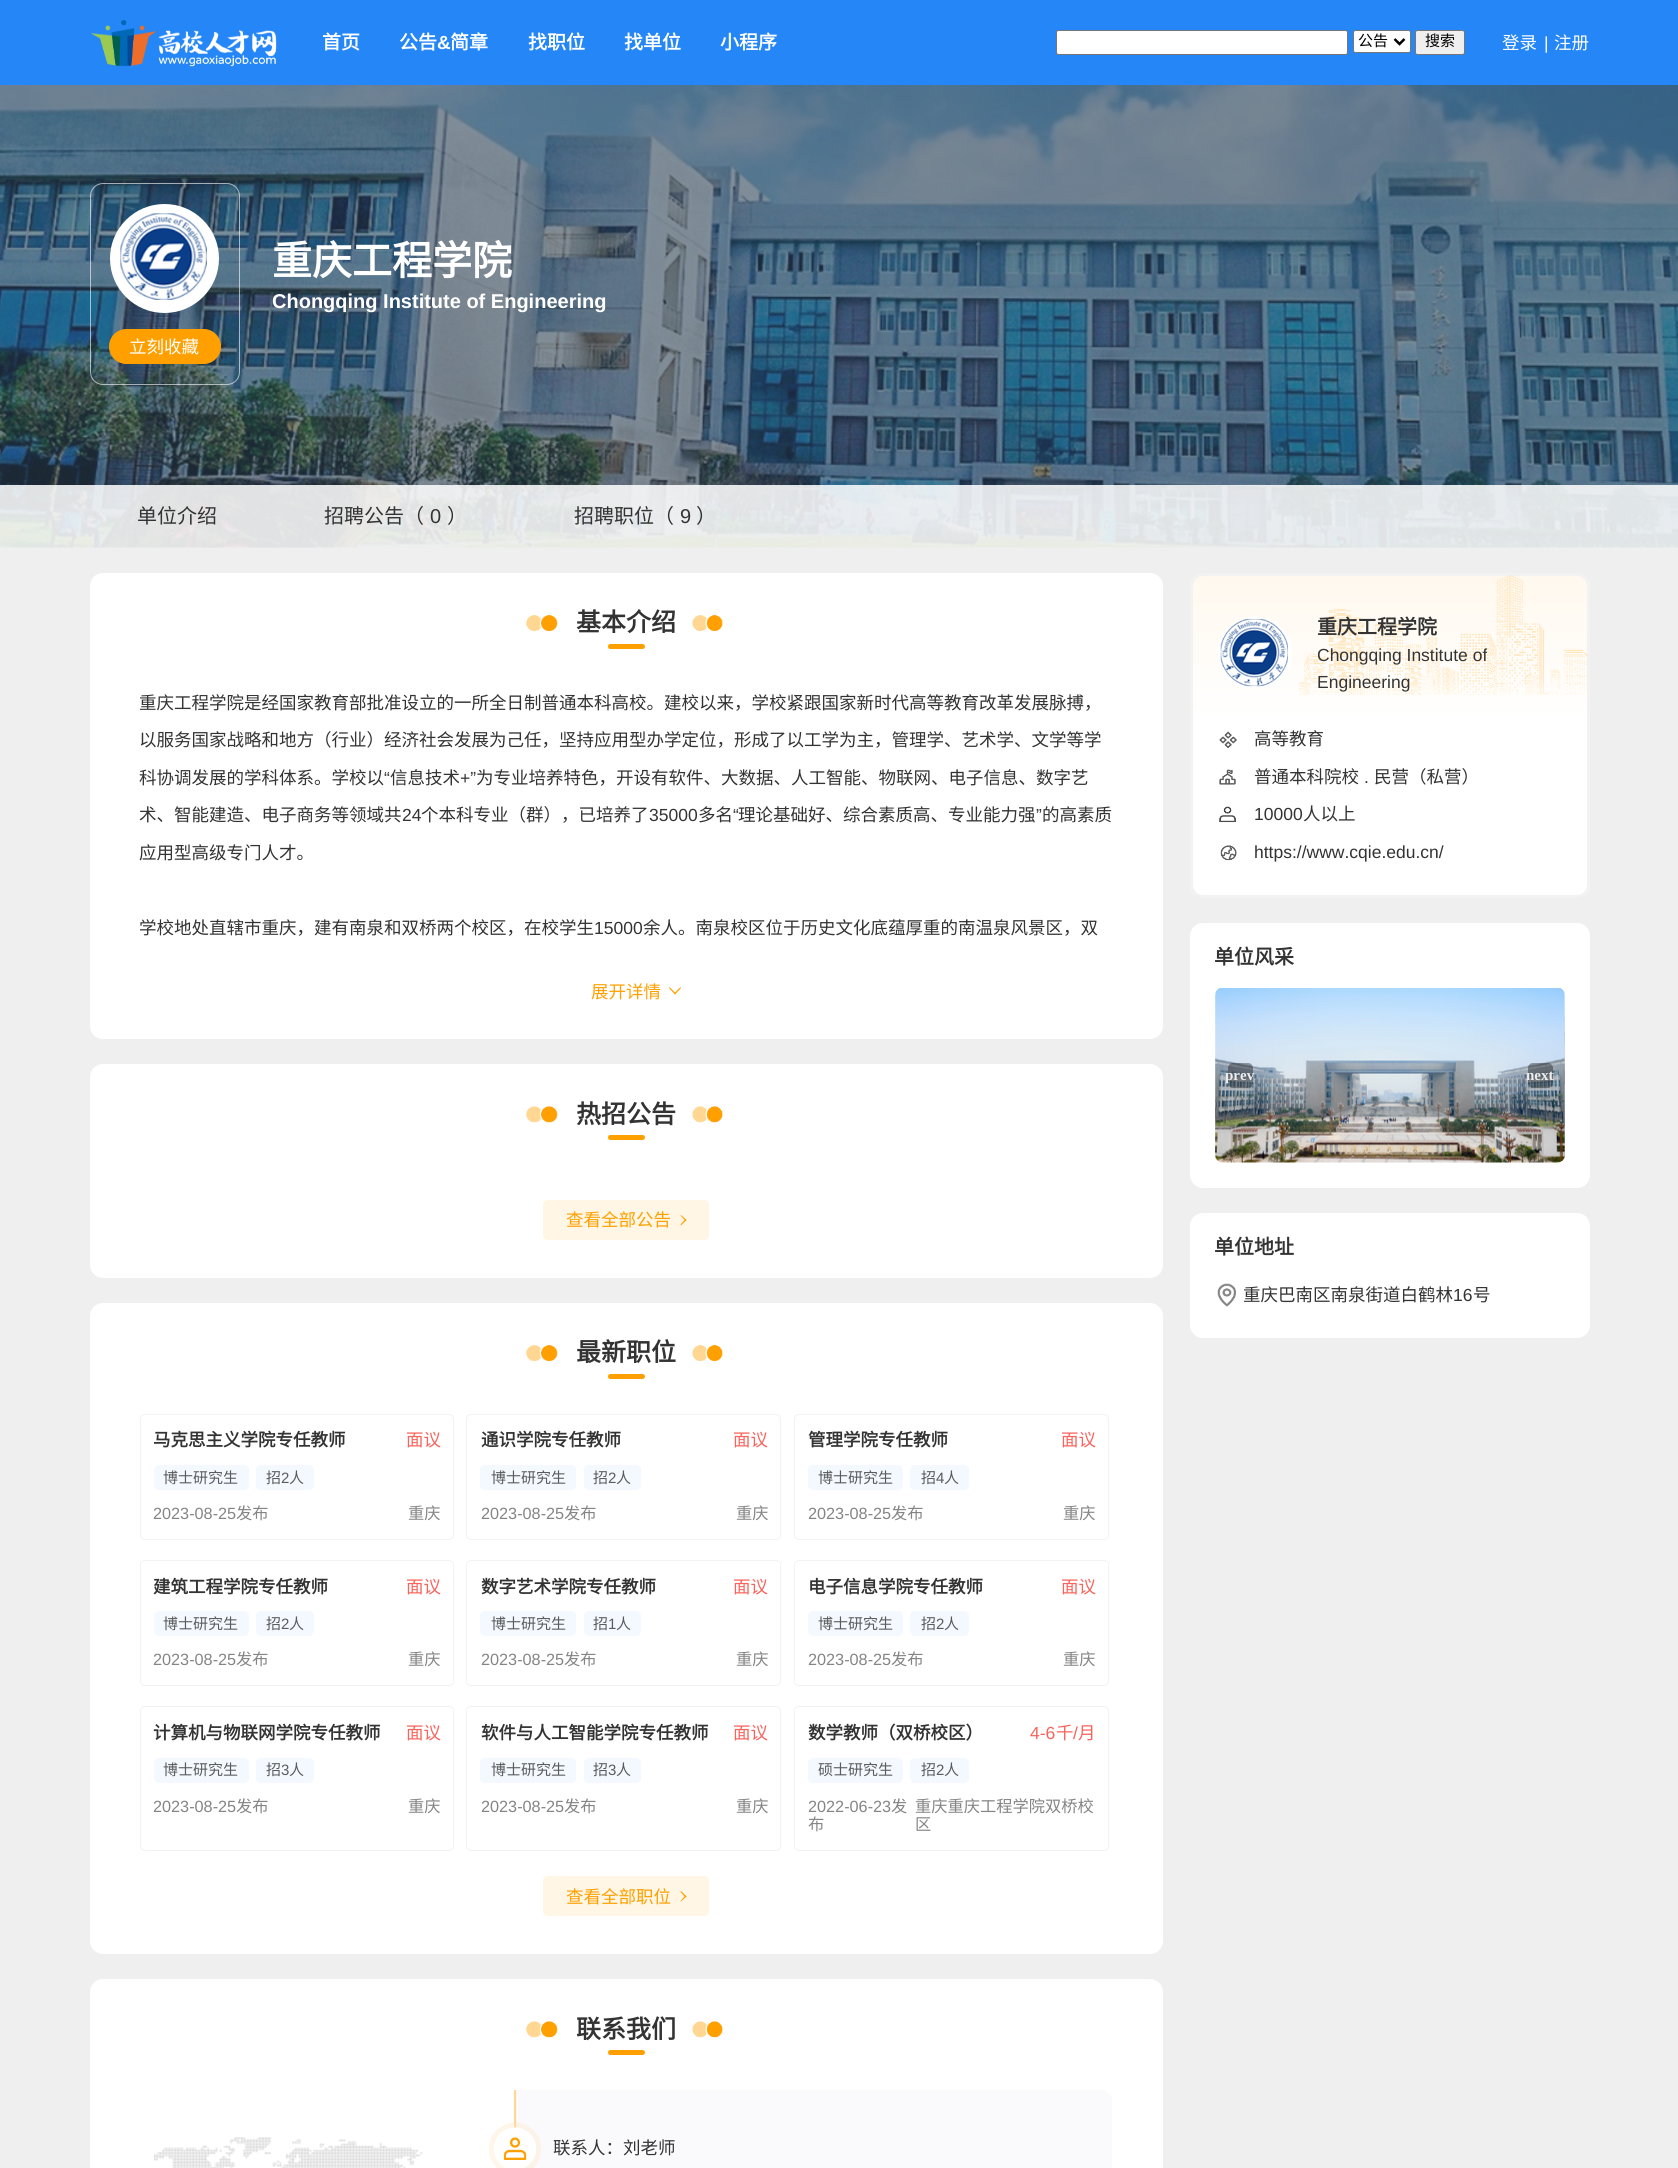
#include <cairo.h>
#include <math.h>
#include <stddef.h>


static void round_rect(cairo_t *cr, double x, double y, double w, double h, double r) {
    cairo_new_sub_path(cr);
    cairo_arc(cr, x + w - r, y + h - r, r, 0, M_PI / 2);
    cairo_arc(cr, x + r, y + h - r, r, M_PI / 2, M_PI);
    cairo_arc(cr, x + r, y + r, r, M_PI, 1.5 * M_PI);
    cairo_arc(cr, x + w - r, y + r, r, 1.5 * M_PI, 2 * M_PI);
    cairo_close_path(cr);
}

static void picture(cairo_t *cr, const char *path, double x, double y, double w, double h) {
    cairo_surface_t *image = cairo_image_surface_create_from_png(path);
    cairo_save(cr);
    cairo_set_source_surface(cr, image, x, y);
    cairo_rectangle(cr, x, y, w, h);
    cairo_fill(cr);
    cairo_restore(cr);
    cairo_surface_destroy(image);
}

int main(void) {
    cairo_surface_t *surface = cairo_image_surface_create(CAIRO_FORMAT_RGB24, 1678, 2168);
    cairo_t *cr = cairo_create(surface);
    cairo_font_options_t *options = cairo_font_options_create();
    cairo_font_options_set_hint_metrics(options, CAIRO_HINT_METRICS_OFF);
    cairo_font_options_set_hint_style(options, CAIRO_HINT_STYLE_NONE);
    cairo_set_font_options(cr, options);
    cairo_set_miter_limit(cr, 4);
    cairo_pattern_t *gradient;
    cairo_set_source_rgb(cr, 0.937, 0.937, 0.937);
    cairo_paint(cr);
    cairo_set_source_rgb(cr, 0.141, 0.525, 0.965);
    cairo_rectangle(cr, 0, 0, 1678, 85);
    cairo_fill(cr);
    picture(cr, "img1.png", 90, 20, 187, 47);
    cairo_select_font_face(cr, "Noto Sans CJK SC", CAIRO_FONT_SLANT_NORMAL, CAIRO_FONT_WEIGHT_BOLD);
    cairo_set_font_size(cr, 19);
    cairo_set_source_rgb(cr, 1, 1, 1);
    cairo_move_to(cr, 322, 49);
    cairo_show_text(cr, "首页");
    cairo_move_to(cr, 399, 49);
    cairo_show_text(cr, "公告");
    cairo_select_font_face(cr, "Liberation Sans", CAIRO_FONT_SLANT_NORMAL, CAIRO_FONT_WEIGHT_BOLD);
    cairo_move_to(cr, 437, 49);
    cairo_show_text(cr, "&");
    cairo_select_font_face(cr, "Noto Sans CJK SC", CAIRO_FONT_SLANT_NORMAL, CAIRO_FONT_WEIGHT_BOLD);
    cairo_move_to(cr, 450, 49);
    cairo_show_text(cr, "简章");
    cairo_move_to(cr, 528, 49);
    cairo_show_text(cr, "找职位");
    cairo_move_to(cr, 624, 49);
    cairo_show_text(cr, "找单位");
    cairo_move_to(cr, 720, 49);
    cairo_show_text(cr, "小程序");
    round_rect(cr, 1056.5, 30.5, 291, 24, 2);
    cairo_fill_preserve(cr);
    cairo_set_source_rgb(cr, 0.463, 0.463, 0.463);
    cairo_set_line_width(cr, 1);
    cairo_stroke(cr);
    cairo_set_source_rgb(cr, 1, 1, 1);
    round_rect(cr, 1353.5, 30.5, 57, 22, 2);
    cairo_fill_preserve(cr);
    cairo_set_source_rgb(cr, 0.463, 0.463, 0.463);
    cairo_stroke(cr);
    cairo_new_path(cr);
    cairo_move_to(cr, 1394.5, 39);
    cairo_line_to(cr, 1399.5, 44);
    cairo_line_to(cr, 1404.5, 39);
    cairo_set_source_rgb(cr, 0, 0, 0);
    cairo_set_line_width(cr, 2.5);
    cairo_stroke(cr);
    cairo_select_font_face(cr, "Noto Sans CJK SC", CAIRO_FONT_SLANT_NORMAL, CAIRO_FONT_WEIGHT_NORMAL);
    cairo_set_font_size(cr, 15);
    cairo_move_to(cr, 1358, 46);
    cairo_show_text(cr, "公告");
    cairo_set_source_rgb(cr, 0.937, 0.937, 0.937);
    round_rect(cr, 1415.5, 30.5, 49, 24, 2);
    cairo_fill_preserve(cr);
    cairo_set_source_rgb(cr, 0.463, 0.463, 0.463);
    cairo_set_line_width(cr, 1);
    cairo_stroke(cr);
    cairo_set_source_rgb(cr, 0, 0, 0);
    cairo_move_to(cr, 1425, 46);
    cairo_show_text(cr, "搜索");
    cairo_set_font_size(cr, 17.5);
    cairo_set_source_rgb(cr, 1, 1, 1);
    cairo_move_to(cr, 1502, 49);
    cairo_show_text(cr, "登录");
    cairo_select_font_face(cr, "Liberation Sans", CAIRO_FONT_SLANT_NORMAL, CAIRO_FONT_WEIGHT_NORMAL);
    cairo_move_to(cr, 1544, 49);
    cairo_show_text(cr, "|");
    cairo_select_font_face(cr, "Noto Sans CJK SC", CAIRO_FONT_SLANT_NORMAL, CAIRO_FONT_WEIGHT_NORMAL);
    cairo_move_to(cr, 1554, 49);
    cairo_show_text(cr, "注册");
    cairo_set_source_rgb(cr, 0.482, 0.533, 0.576);
    cairo_rectangle(cr, 0, 547, 1678, 1);
    cairo_fill(cr);
    picture(cr, "img2.png", 0, 85, 1678, 463);
    cairo_select_font_face(cr, "Noto Sans CJK SC", CAIRO_FONT_SLANT_NORMAL, CAIRO_FONT_WEIGHT_BOLD);
    cairo_set_font_size(cr, 40);
    cairo_set_source_rgb(cr, 1, 1, 1);
    cairo_move_to(cr, 272, 275);
    cairo_show_text(cr, "重庆工程学院");
    cairo_select_font_face(cr, "Liberation Sans", CAIRO_FONT_SLANT_NORMAL, CAIRO_FONT_WEIGHT_BOLD);
    cairo_set_font_size(cr, 20);
    cairo_move_to(cr, 272, 308);
    cairo_show_text(cr, "Chongqing Institute of Engineering");
    round_rect(cr, 90.5, 183.5, 149, 201, 12.5);
    cairo_set_source_rgba(cr, 1, 1, 1, 0.6);
    cairo_stroke(cr);
    cairo_set_source_rgb(cr, 1, 1, 1);
    cairo_arc(cr, 164.5, 258.5, 51.5, 0, 2 * M_PI);
    cairo_fill_preserve(cr);
    cairo_set_line_width(cr, 6);
    cairo_stroke(cr);
    picture(cr, "img3.png", 120, 213, 87, 87);
    cairo_set_source_rgb(cr, 1, 0.627, 0);
    round_rect(cr, 109.5, 329.5, 111, 34, 17);
    cairo_fill_preserve(cr);
    cairo_set_line_width(cr, 1);
    cairo_stroke(cr);
    cairo_select_font_face(cr, "Noto Sans CJK SC", CAIRO_FONT_SLANT_NORMAL, CAIRO_FONT_WEIGHT_NORMAL);
    cairo_set_font_size(cr, 17.5);
    cairo_set_source_rgb(cr, 1, 1, 1);
    cairo_move_to(cr, 129, 353);
    cairo_show_text(cr, "立刻收藏");
    cairo_set_source_rgba(cr, 1, 1, 1, 0.86);
    cairo_rectangle(cr, 0, 485, 1678, 63);
    cairo_fill(cr);
    cairo_set_font_size(cr, 20);
    cairo_set_source_rgb(cr, 0.2, 0.2, 0.2);
    cairo_move_to(cr, 137, 523);
    cairo_show_text(cr, "单位介绍");
    cairo_move_to(cr, 324, 523);
    cairo_show_text(cr, "招聘公告（");
    cairo_select_font_face(cr, "Liberation Sans", CAIRO_FONT_SLANT_NORMAL, CAIRO_FONT_WEIGHT_NORMAL);
    cairo_move_to(cr, 430, 523);
    cairo_show_text(cr, "0");
    cairo_select_font_face(cr, "Noto Sans CJK SC", CAIRO_FONT_SLANT_NORMAL, CAIRO_FONT_WEIGHT_NORMAL);
    cairo_move_to(cr, 447, 523);
    cairo_show_text(cr, "）");
    cairo_move_to(cr, 574, 523);
    cairo_show_text(cr, "招聘职位（");
    cairo_select_font_face(cr, "Liberation Sans", CAIRO_FONT_SLANT_NORMAL, CAIRO_FONT_WEIGHT_NORMAL);
    cairo_move_to(cr, 680, 523);
    cairo_show_text(cr, "9");
    cairo_select_font_face(cr, "Noto Sans CJK SC", CAIRO_FONT_SLANT_NORMAL, CAIRO_FONT_WEIGHT_NORMAL);
    cairo_move_to(cr, 696, 523);
    cairo_show_text(cr, "）");
    cairo_set_source_rgb(cr, 1, 1, 1);
    round_rect(cr, 90, 573, 1073, 466, 13);
    cairo_fill(cr);
    picture(cr, "img4.png", 526, 615, 197, 16);
    cairo_select_font_face(cr, "Noto Sans CJK SC", CAIRO_FONT_SLANT_NORMAL, CAIRO_FONT_WEIGHT_BOLD);
    cairo_set_font_size(cr, 25);
    cairo_set_source_rgb(cr, 0.2, 0.2, 0.2);
    cairo_move_to(cr, 576, 631);
    cairo_show_text(cr, "基本介绍");
    cairo_set_source_rgb(cr, 1, 0.627, 0);
    round_rect(cr, 608, 644, 37, 5, 2.5);
    cairo_fill(cr);
    cairo_select_font_face(cr, "Noto Sans CJK SC", CAIRO_FONT_SLANT_NORMAL, CAIRO_FONT_WEIGHT_NORMAL);
    cairo_set_font_size(cr, 17.5);
    cairo_set_source_rgb(cr, 0.2, 0.2, 0.2);
    cairo_move_to(cr, 139, 709);
    cairo_show_text(cr, "重庆工程学院是经国家教育部批准设立的一所全日制普通本科高校。建校以来，学校紧跟国家新时代高等教育改革发展脉搏，");
    cairo_move_to(cr, 139, 746);
    cairo_show_text(cr, "以服务国家战略和地方（行业）经济社会发展为己任，坚持应用型办学定位，形成了以工学为主，管理学、艺术学、文学等学");
    cairo_move_to(cr, 139, 784);
    cairo_show_text(cr, "科协调发展的学科体系。学校以");
    cairo_select_font_face(cr, "Liberation Sans", CAIRO_FONT_SLANT_NORMAL, CAIRO_FONT_WEIGHT_NORMAL);
    cairo_move_to(cr, 384, 784);
    cairo_show_text(cr, "“");
    cairo_select_font_face(cr, "Noto Sans CJK SC", CAIRO_FONT_SLANT_NORMAL, CAIRO_FONT_WEIGHT_NORMAL);
    cairo_move_to(cr, 390, 784);
    cairo_show_text(cr, "信息技术");
    cairo_select_font_face(cr, "Liberation Sans", CAIRO_FONT_SLANT_NORMAL, CAIRO_FONT_WEIGHT_NORMAL);
    cairo_move_to(cr, 460, 784);
    cairo_show_text(cr, "+”");
    cairo_select_font_face(cr, "Noto Sans CJK SC", CAIRO_FONT_SLANT_NORMAL, CAIRO_FONT_WEIGHT_NORMAL);
    cairo_move_to(cr, 476, 784);
    cairo_show_text(cr, "为专业培养特色，开设有软件、大数据、人工智能、物联网、电子信息、数字艺");
    cairo_move_to(cr, 139, 821);
    cairo_show_text(cr, "术、智能建造、电子商务等领域共");
    cairo_select_font_face(cr, "Liberation Sans", CAIRO_FONT_SLANT_NORMAL, CAIRO_FONT_WEIGHT_NORMAL);
    cairo_move_to(cr, 402, 821);
    cairo_show_text(cr, "24");
    cairo_select_font_face(cr, "Noto Sans CJK SC", CAIRO_FONT_SLANT_NORMAL, CAIRO_FONT_WEIGHT_NORMAL);
    cairo_move_to(cr, 421, 821);
    cairo_show_text(cr, "个本科专业（群），已培养了");
    cairo_select_font_face(cr, "Liberation Sans", CAIRO_FONT_SLANT_NORMAL, CAIRO_FONT_WEIGHT_NORMAL);
    cairo_move_to(cr, 649, 821);
    cairo_show_text(cr, "35000");
    cairo_select_font_face(cr, "Noto Sans CJK SC", CAIRO_FONT_SLANT_NORMAL, CAIRO_FONT_WEIGHT_NORMAL);
    cairo_move_to(cr, 698, 821);
    cairo_show_text(cr, "多名");
    cairo_select_font_face(cr, "Liberation Sans", CAIRO_FONT_SLANT_NORMAL, CAIRO_FONT_WEIGHT_NORMAL);
    cairo_move_to(cr, 733, 821);
    cairo_show_text(cr, "“");
    cairo_select_font_face(cr, "Noto Sans CJK SC", CAIRO_FONT_SLANT_NORMAL, CAIRO_FONT_WEIGHT_NORMAL);
    cairo_move_to(cr, 738, 821);
    cairo_show_text(cr, "理论基础好、综合素质高、专业能力强");
    cairo_select_font_face(cr, "Liberation Sans", CAIRO_FONT_SLANT_NORMAL, CAIRO_FONT_WEIGHT_NORMAL);
    cairo_move_to(cr, 1036, 821);
    cairo_show_text(cr, "”");
    cairo_select_font_face(cr, "Noto Sans CJK SC", CAIRO_FONT_SLANT_NORMAL, CAIRO_FONT_WEIGHT_NORMAL);
    cairo_move_to(cr, 1042, 821);
    cairo_show_text(cr, "的高素质");
    cairo_move_to(cr, 139, 859);
    cairo_show_text(cr, "应用型高级专门人才。");
    cairo_move_to(cr, 139, 934);
    cairo_show_text(cr, "学校地处直辖市重庆，建有南泉和双桥两个校区，在校学生");
    cairo_select_font_face(cr, "Liberation Sans", CAIRO_FONT_SLANT_NORMAL, CAIRO_FONT_WEIGHT_NORMAL);
    cairo_move_to(cr, 594, 934);
    cairo_show_text(cr, "15000");
    cairo_select_font_face(cr, "Noto Sans CJK SC", CAIRO_FONT_SLANT_NORMAL, CAIRO_FONT_WEIGHT_NORMAL);
    cairo_move_to(cr, 643, 934);
    cairo_show_text(cr, "余人。南泉校区位于历史文化底蕴厚重的南温泉风景区，双");
    cairo_set_source_rgb(cr, 1, 0.627, 0);
    cairo_move_to(cr, 591, 998);
    cairo_show_text(cr, "展开详情");
    cairo_new_path(cr);
    cairo_move_to(cr, 680.5, 987);
    cairo_line_to(cr, 681, 988);
    cairo_line_to(cr, 675, 994.5);
    cairo_line_to(cr, 674, 993.5);
    cairo_close_path(cr);
    cairo_fill(cr);
    cairo_new_path(cr);
    cairo_move_to(cr, 669.5, 987);
    cairo_line_to(cr, 676, 993.5);
    cairo_line_to(cr, 675, 994.5);
    cairo_line_to(cr, 669, 988);
    cairo_close_path(cr);
    cairo_fill(cr);
    cairo_set_source_rgb(cr, 1, 1, 1);
    round_rect(cr, 90, 1064, 1073, 214, 13);
    cairo_fill(cr);
    picture(cr, "img5.png", 526, 1106, 197, 17);
    cairo_select_font_face(cr, "Noto Sans CJK SC", CAIRO_FONT_SLANT_NORMAL, CAIRO_FONT_WEIGHT_BOLD);
    cairo_set_font_size(cr, 25);
    cairo_set_source_rgb(cr, 0.2, 0.2, 0.2);
    cairo_move_to(cr, 576, 1123);
    cairo_show_text(cr, "热招公告");
    cairo_set_source_rgb(cr, 1, 0.627, 0);
    round_rect(cr, 608, 1135, 37, 5, 2.5);
    cairo_fill(cr);
    cairo_set_source_rgb(cr, 1, 0.961, 0.898);
    round_rect(cr, 543, 1200, 166, 40, 5);
    cairo_fill(cr);
    cairo_select_font_face(cr, "Noto Sans CJK SC", CAIRO_FONT_SLANT_NORMAL, CAIRO_FONT_WEIGHT_NORMAL);
    cairo_set_font_size(cr, 17.5);
    cairo_set_source_rgb(cr, 1, 0.627, 0);
    cairo_move_to(cr, 566, 1226);
    cairo_show_text(cr, "查看全部公告");
    cairo_new_path(cr);
    cairo_move_to(cr, 680.5, 1215.5);
    cairo_line_to(cr, 681, 1215);
    cairo_line_to(cr, 686.5, 1220);
    cairo_line_to(cr, 685.5, 1221);
    cairo_close_path(cr);
    cairo_fill(cr);
    cairo_new_path(cr);
    cairo_move_to(cr, 680.5, 1224.5);
    cairo_line_to(cr, 685.5, 1219);
    cairo_line_to(cr, 686.5, 1220);
    cairo_line_to(cr, 681, 1225.5);
    cairo_close_path(cr);
    cairo_fill(cr);
    cairo_set_source_rgb(cr, 1, 1, 1);
    round_rect(cr, 90, 1303, 1073, 651, 13);
    cairo_fill(cr);
    picture(cr, "img4.png", 526, 1345, 197, 16);
    cairo_select_font_face(cr, "Noto Sans CJK SC", CAIRO_FONT_SLANT_NORMAL, CAIRO_FONT_WEIGHT_BOLD);
    cairo_set_font_size(cr, 25);
    cairo_set_source_rgb(cr, 0.2, 0.2, 0.2);
    cairo_move_to(cr, 576, 1361);
    cairo_show_text(cr, "最新职位");
    cairo_set_source_rgb(cr, 1, 0.627, 0);
    round_rect(cr, 608, 1374, 37, 5, 2.5);
    cairo_fill(cr);
    round_rect(cr, 140.5, 1414.5, 313, 125, 4.5);
    cairo_set_source_rgb(cr, 0.949, 0.949, 0.949);
    cairo_stroke(cr);
    cairo_set_font_size(cr, 17.5);
    cairo_set_source_rgb(cr, 0.2, 0.2, 0.2);
    cairo_move_to(cr, 153, 1446);
    cairo_show_text(cr, "马克思主义学院专任教师");
    cairo_select_font_face(cr, "Noto Sans CJK SC", CAIRO_FONT_SLANT_NORMAL, CAIRO_FONT_WEIGHT_NORMAL);
    cairo_set_source_rgb(cr, 0.98, 0.388, 0.361);
    cairo_move_to(cr, 406, 1446);
    cairo_show_text(cr, "面议");
    cairo_set_source_rgb(cr, 0.957, 0.976, 1);
    round_rect(cr, 154, 1465, 95, 25, 5);
    cairo_fill(cr);
    cairo_set_font_size(cr, 15);
    cairo_set_source_rgb(cr, 0.353, 0.357, 0.361);
    cairo_move_to(cr, 163, 1483);
    cairo_show_text(cr, "博士研究生");
    cairo_set_source_rgb(cr, 0.957, 0.976, 1);
    round_rect(cr, 256, 1465, 58, 25, 5);
    cairo_fill(cr);
    cairo_set_source_rgb(cr, 0.353, 0.357, 0.361);
    cairo_move_to(cr, 266, 1483);
    cairo_show_text(cr, "招");
    cairo_select_font_face(cr, "Liberation Sans", CAIRO_FONT_SLANT_NORMAL, CAIRO_FONT_WEIGHT_NORMAL);
    cairo_move_to(cr, 281, 1483);
    cairo_show_text(cr, "2");
    cairo_select_font_face(cr, "Noto Sans CJK SC", CAIRO_FONT_SLANT_NORMAL, CAIRO_FONT_WEIGHT_NORMAL);
    cairo_move_to(cr, 289, 1483);
    cairo_show_text(cr, "人");
    cairo_select_font_face(cr, "Liberation Sans", CAIRO_FONT_SLANT_NORMAL, CAIRO_FONT_WEIGHT_NORMAL);
    cairo_set_font_size(cr, 16.25);
    cairo_set_source_rgb(cr, 0.522, 0.522, 0.522);
    cairo_move_to(cr, 153, 1519);
    cairo_show_text(cr, "2023-08-25");
    cairo_select_font_face(cr, "Noto Sans CJK SC", CAIRO_FONT_SLANT_NORMAL, CAIRO_FONT_WEIGHT_NORMAL);
    cairo_move_to(cr, 236, 1519);
    cairo_show_text(cr, "发布");
    cairo_move_to(cr, 408, 1519);
    cairo_show_text(cr, "重庆");
    round_rect(cr, 466.5, 1414.5, 314, 125, 4.5);
    cairo_set_source_rgb(cr, 0.949, 0.949, 0.949);
    cairo_stroke(cr);
    cairo_select_font_face(cr, "Noto Sans CJK SC", CAIRO_FONT_SLANT_NORMAL, CAIRO_FONT_WEIGHT_BOLD);
    cairo_set_font_size(cr, 17.5);
    cairo_set_source_rgb(cr, 0.2, 0.2, 0.2);
    cairo_move_to(cr, 481, 1446);
    cairo_show_text(cr, "通识学院专任教师");
    cairo_select_font_face(cr, "Noto Sans CJK SC", CAIRO_FONT_SLANT_NORMAL, CAIRO_FONT_WEIGHT_NORMAL);
    cairo_set_source_rgb(cr, 0.98, 0.388, 0.361);
    cairo_move_to(cr, 733, 1446);
    cairo_show_text(cr, "面议");
    cairo_set_source_rgb(cr, 0.957, 0.976, 1);
    round_rect(cr, 480, 1465, 96, 25, 5);
    cairo_fill(cr);
    cairo_set_font_size(cr, 15);
    cairo_set_source_rgb(cr, 0.353, 0.357, 0.361);
    cairo_move_to(cr, 491, 1483);
    cairo_show_text(cr, "博士研究生");
    cairo_set_source_rgb(cr, 0.957, 0.976, 1);
    round_rect(cr, 584, 1465, 57, 25, 5);
    cairo_fill(cr);
    cairo_set_source_rgb(cr, 0.353, 0.357, 0.361);
    cairo_move_to(cr, 593, 1483);
    cairo_show_text(cr, "招");
    cairo_select_font_face(cr, "Liberation Sans", CAIRO_FONT_SLANT_NORMAL, CAIRO_FONT_WEIGHT_NORMAL);
    cairo_move_to(cr, 608, 1483);
    cairo_show_text(cr, "2");
    cairo_select_font_face(cr, "Noto Sans CJK SC", CAIRO_FONT_SLANT_NORMAL, CAIRO_FONT_WEIGHT_NORMAL);
    cairo_move_to(cr, 616, 1483);
    cairo_show_text(cr, "人");
    cairo_select_font_face(cr, "Liberation Sans", CAIRO_FONT_SLANT_NORMAL, CAIRO_FONT_WEIGHT_NORMAL);
    cairo_set_font_size(cr, 16.25);
    cairo_set_source_rgb(cr, 0.522, 0.522, 0.522);
    cairo_move_to(cr, 481, 1519);
    cairo_show_text(cr, "2023-08-25");
    cairo_select_font_face(cr, "Noto Sans CJK SC", CAIRO_FONT_SLANT_NORMAL, CAIRO_FONT_WEIGHT_NORMAL);
    cairo_move_to(cr, 564, 1519);
    cairo_show_text(cr, "发布");
    cairo_move_to(cr, 736, 1519);
    cairo_show_text(cr, "重庆");
    round_rect(cr, 794.5, 1414.5, 314, 125, 4.5);
    cairo_set_source_rgb(cr, 0.949, 0.949, 0.949);
    cairo_stroke(cr);
    cairo_select_font_face(cr, "Noto Sans CJK SC", CAIRO_FONT_SLANT_NORMAL, CAIRO_FONT_WEIGHT_BOLD);
    cairo_set_font_size(cr, 17.5);
    cairo_set_source_rgb(cr, 0.2, 0.2, 0.2);
    cairo_move_to(cr, 808, 1446);
    cairo_show_text(cr, "管理学院专任教师");
    cairo_select_font_face(cr, "Noto Sans CJK SC", CAIRO_FONT_SLANT_NORMAL, CAIRO_FONT_WEIGHT_NORMAL);
    cairo_set_source_rgb(cr, 0.98, 0.388, 0.361);
    cairo_move_to(cr, 1061, 1446);
    cairo_show_text(cr, "面议");
    cairo_set_source_rgb(cr, 0.957, 0.976, 1);
    round_rect(cr, 808, 1465, 95, 25, 5);
    cairo_fill(cr);
    cairo_set_font_size(cr, 15);
    cairo_set_source_rgb(cr, 0.353, 0.357, 0.361);
    cairo_move_to(cr, 818, 1483);
    cairo_show_text(cr, "博士研究生");
    cairo_set_source_rgb(cr, 0.957, 0.976, 1);
    round_rect(cr, 910, 1465, 59, 25, 5);
    cairo_fill(cr);
    cairo_set_source_rgb(cr, 0.353, 0.357, 0.361);
    cairo_move_to(cr, 921, 1483);
    cairo_show_text(cr, "招");
    cairo_select_font_face(cr, "Liberation Sans", CAIRO_FONT_SLANT_NORMAL, CAIRO_FONT_WEIGHT_NORMAL);
    cairo_move_to(cr, 936, 1483);
    cairo_show_text(cr, "4");
    cairo_select_font_face(cr, "Noto Sans CJK SC", CAIRO_FONT_SLANT_NORMAL, CAIRO_FONT_WEIGHT_NORMAL);
    cairo_move_to(cr, 944, 1483);
    cairo_show_text(cr, "人");
    cairo_select_font_face(cr, "Liberation Sans", CAIRO_FONT_SLANT_NORMAL, CAIRO_FONT_WEIGHT_NORMAL);
    cairo_set_font_size(cr, 16.25);
    cairo_set_source_rgb(cr, 0.522, 0.522, 0.522);
    cairo_move_to(cr, 808, 1519);
    cairo_show_text(cr, "2023-08-25");
    cairo_select_font_face(cr, "Noto Sans CJK SC", CAIRO_FONT_SLANT_NORMAL, CAIRO_FONT_WEIGHT_NORMAL);
    cairo_move_to(cr, 891, 1519);
    cairo_show_text(cr, "发布");
    cairo_move_to(cr, 1063, 1519);
    cairo_show_text(cr, "重庆");
    round_rect(cr, 140.5, 1560.5, 313, 125, 4.5);
    cairo_set_source_rgb(cr, 0.949, 0.949, 0.949);
    cairo_stroke(cr);
    cairo_select_font_face(cr, "Noto Sans CJK SC", CAIRO_FONT_SLANT_NORMAL, CAIRO_FONT_WEIGHT_BOLD);
    cairo_set_font_size(cr, 17.5);
    cairo_set_source_rgb(cr, 0.2, 0.2, 0.2);
    cairo_move_to(cr, 153, 1593);
    cairo_show_text(cr, "建筑工程学院专任教师");
    cairo_select_font_face(cr, "Noto Sans CJK SC", CAIRO_FONT_SLANT_NORMAL, CAIRO_FONT_WEIGHT_NORMAL);
    cairo_set_source_rgb(cr, 0.98, 0.388, 0.361);
    cairo_move_to(cr, 406, 1593);
    cairo_show_text(cr, "面议");
    cairo_set_source_rgb(cr, 0.957, 0.976, 1);
    round_rect(cr, 154, 1611, 95, 25, 5);
    cairo_fill(cr);
    cairo_set_font_size(cr, 15);
    cairo_set_source_rgb(cr, 0.353, 0.357, 0.361);
    cairo_move_to(cr, 163, 1629);
    cairo_show_text(cr, "博士研究生");
    cairo_set_source_rgb(cr, 0.957, 0.976, 1);
    round_rect(cr, 256, 1611, 58, 25, 5);
    cairo_fill(cr);
    cairo_set_source_rgb(cr, 0.353, 0.357, 0.361);
    cairo_move_to(cr, 266, 1629);
    cairo_show_text(cr, "招");
    cairo_select_font_face(cr, "Liberation Sans", CAIRO_FONT_SLANT_NORMAL, CAIRO_FONT_WEIGHT_NORMAL);
    cairo_move_to(cr, 281, 1629);
    cairo_show_text(cr, "2");
    cairo_select_font_face(cr, "Noto Sans CJK SC", CAIRO_FONT_SLANT_NORMAL, CAIRO_FONT_WEIGHT_NORMAL);
    cairo_move_to(cr, 289, 1629);
    cairo_show_text(cr, "人");
    cairo_select_font_face(cr, "Liberation Sans", CAIRO_FONT_SLANT_NORMAL, CAIRO_FONT_WEIGHT_NORMAL);
    cairo_set_font_size(cr, 16.25);
    cairo_set_source_rgb(cr, 0.522, 0.522, 0.522);
    cairo_move_to(cr, 153, 1665);
    cairo_show_text(cr, "2023-08-25");
    cairo_select_font_face(cr, "Noto Sans CJK SC", CAIRO_FONT_SLANT_NORMAL, CAIRO_FONT_WEIGHT_NORMAL);
    cairo_move_to(cr, 236, 1665);
    cairo_show_text(cr, "发布");
    cairo_move_to(cr, 408, 1665);
    cairo_show_text(cr, "重庆");
    round_rect(cr, 466.5, 1560.5, 314, 125, 4.5);
    cairo_set_source_rgb(cr, 0.949, 0.949, 0.949);
    cairo_stroke(cr);
    cairo_select_font_face(cr, "Noto Sans CJK SC", CAIRO_FONT_SLANT_NORMAL, CAIRO_FONT_WEIGHT_BOLD);
    cairo_set_font_size(cr, 17.5);
    cairo_set_source_rgb(cr, 0.2, 0.2, 0.2);
    cairo_move_to(cr, 481, 1593);
    cairo_show_text(cr, "数字艺术学院专任教师");
    cairo_select_font_face(cr, "Noto Sans CJK SC", CAIRO_FONT_SLANT_NORMAL, CAIRO_FONT_WEIGHT_NORMAL);
    cairo_set_source_rgb(cr, 0.98, 0.388, 0.361);
    cairo_move_to(cr, 733, 1593);
    cairo_show_text(cr, "面议");
    cairo_set_source_rgb(cr, 0.957, 0.976, 1);
    round_rect(cr, 480, 1611, 96, 25, 5);
    cairo_fill(cr);
    cairo_set_font_size(cr, 15);
    cairo_set_source_rgb(cr, 0.353, 0.357, 0.361);
    cairo_move_to(cr, 491, 1629);
    cairo_show_text(cr, "博士研究生");
    cairo_set_source_rgb(cr, 0.957, 0.976, 1);
    round_rect(cr, 584, 1611, 57, 25, 5);
    cairo_fill(cr);
    cairo_set_source_rgb(cr, 0.353, 0.357, 0.361);
    cairo_move_to(cr, 593, 1629);
    cairo_show_text(cr, "招");
    cairo_select_font_face(cr, "Liberation Sans", CAIRO_FONT_SLANT_NORMAL, CAIRO_FONT_WEIGHT_NORMAL);
    cairo_move_to(cr, 608, 1629);
    cairo_show_text(cr, "1");
    cairo_select_font_face(cr, "Noto Sans CJK SC", CAIRO_FONT_SLANT_NORMAL, CAIRO_FONT_WEIGHT_NORMAL);
    cairo_move_to(cr, 616, 1629);
    cairo_show_text(cr, "人");
    cairo_select_font_face(cr, "Liberation Sans", CAIRO_FONT_SLANT_NORMAL, CAIRO_FONT_WEIGHT_NORMAL);
    cairo_set_font_size(cr, 16.25);
    cairo_set_source_rgb(cr, 0.522, 0.522, 0.522);
    cairo_move_to(cr, 481, 1665);
    cairo_show_text(cr, "2023-08-25");
    cairo_select_font_face(cr, "Noto Sans CJK SC", CAIRO_FONT_SLANT_NORMAL, CAIRO_FONT_WEIGHT_NORMAL);
    cairo_move_to(cr, 564, 1665);
    cairo_show_text(cr, "发布");
    cairo_move_to(cr, 736, 1665);
    cairo_show_text(cr, "重庆");
    round_rect(cr, 794.5, 1560.5, 314, 125, 4.5);
    cairo_set_source_rgb(cr, 0.949, 0.949, 0.949);
    cairo_stroke(cr);
    cairo_select_font_face(cr, "Noto Sans CJK SC", CAIRO_FONT_SLANT_NORMAL, CAIRO_FONT_WEIGHT_BOLD);
    cairo_set_font_size(cr, 17.5);
    cairo_set_source_rgb(cr, 0.2, 0.2, 0.2);
    cairo_move_to(cr, 808, 1593);
    cairo_show_text(cr, "电子信息学院专任教师");
    cairo_select_font_face(cr, "Noto Sans CJK SC", CAIRO_FONT_SLANT_NORMAL, CAIRO_FONT_WEIGHT_NORMAL);
    cairo_set_source_rgb(cr, 0.98, 0.388, 0.361);
    cairo_move_to(cr, 1061, 1593);
    cairo_show_text(cr, "面议");
    cairo_set_source_rgb(cr, 0.957, 0.976, 1);
    round_rect(cr, 808, 1611, 95, 25, 5);
    cairo_fill(cr);
    cairo_set_font_size(cr, 15);
    cairo_set_source_rgb(cr, 0.353, 0.357, 0.361);
    cairo_move_to(cr, 818, 1629);
    cairo_show_text(cr, "博士研究生");
    cairo_set_source_rgb(cr, 0.957, 0.976, 1);
    round_rect(cr, 910, 1611, 59, 25, 5);
    cairo_fill(cr);
    cairo_set_source_rgb(cr, 0.353, 0.357, 0.361);
    cairo_move_to(cr, 921, 1629);
    cairo_show_text(cr, "招");
    cairo_select_font_face(cr, "Liberation Sans", CAIRO_FONT_SLANT_NORMAL, CAIRO_FONT_WEIGHT_NORMAL);
    cairo_move_to(cr, 936, 1629);
    cairo_show_text(cr, "2");
    cairo_select_font_face(cr, "Noto Sans CJK SC", CAIRO_FONT_SLANT_NORMAL, CAIRO_FONT_WEIGHT_NORMAL);
    cairo_move_to(cr, 944, 1629);
    cairo_show_text(cr, "人");
    cairo_select_font_face(cr, "Liberation Sans", CAIRO_FONT_SLANT_NORMAL, CAIRO_FONT_WEIGHT_NORMAL);
    cairo_set_font_size(cr, 16.25);
    cairo_set_source_rgb(cr, 0.522, 0.522, 0.522);
    cairo_move_to(cr, 808, 1665);
    cairo_show_text(cr, "2023-08-25");
    cairo_select_font_face(cr, "Noto Sans CJK SC", CAIRO_FONT_SLANT_NORMAL, CAIRO_FONT_WEIGHT_NORMAL);
    cairo_move_to(cr, 891, 1665);
    cairo_show_text(cr, "发布");
    cairo_move_to(cr, 1063, 1665);
    cairo_show_text(cr, "重庆");
    round_rect(cr, 140.5, 1706.5, 313, 144, 4.5);
    cairo_set_source_rgb(cr, 0.949, 0.949, 0.949);
    cairo_stroke(cr);
    cairo_select_font_face(cr, "Noto Sans CJK SC", CAIRO_FONT_SLANT_NORMAL, CAIRO_FONT_WEIGHT_BOLD);
    cairo_set_font_size(cr, 17.5);
    cairo_set_source_rgb(cr, 0.2, 0.2, 0.2);
    cairo_move_to(cr, 153, 1739);
    cairo_show_text(cr, "计算机与物联网学院专任教师");
    cairo_select_font_face(cr, "Noto Sans CJK SC", CAIRO_FONT_SLANT_NORMAL, CAIRO_FONT_WEIGHT_NORMAL);
    cairo_set_source_rgb(cr, 0.98, 0.388, 0.361);
    cairo_move_to(cr, 406, 1739);
    cairo_show_text(cr, "面议");
    cairo_set_source_rgb(cr, 0.957, 0.976, 1);
    round_rect(cr, 154, 1758, 95, 25, 5);
    cairo_fill(cr);
    cairo_set_font_size(cr, 15);
    cairo_set_source_rgb(cr, 0.353, 0.357, 0.361);
    cairo_move_to(cr, 163, 1775);
    cairo_show_text(cr, "博士研究生");
    cairo_set_source_rgb(cr, 0.957, 0.976, 1);
    round_rect(cr, 256, 1758, 58, 25, 5);
    cairo_fill(cr);
    cairo_set_source_rgb(cr, 0.353, 0.357, 0.361);
    cairo_move_to(cr, 266, 1775);
    cairo_show_text(cr, "招");
    cairo_select_font_face(cr, "Liberation Sans", CAIRO_FONT_SLANT_NORMAL, CAIRO_FONT_WEIGHT_NORMAL);
    cairo_move_to(cr, 281, 1775);
    cairo_show_text(cr, "3");
    cairo_select_font_face(cr, "Noto Sans CJK SC", CAIRO_FONT_SLANT_NORMAL, CAIRO_FONT_WEIGHT_NORMAL);
    cairo_move_to(cr, 289, 1775);
    cairo_show_text(cr, "人");
    cairo_select_font_face(cr, "Liberation Sans", CAIRO_FONT_SLANT_NORMAL, CAIRO_FONT_WEIGHT_NORMAL);
    cairo_set_font_size(cr, 16.25);
    cairo_set_source_rgb(cr, 0.522, 0.522, 0.522);
    cairo_move_to(cr, 153, 1812);
    cairo_show_text(cr, "2023-08-25");
    cairo_select_font_face(cr, "Noto Sans CJK SC", CAIRO_FONT_SLANT_NORMAL, CAIRO_FONT_WEIGHT_NORMAL);
    cairo_move_to(cr, 236, 1812);
    cairo_show_text(cr, "发布");
    cairo_move_to(cr, 408, 1812);
    cairo_show_text(cr, "重庆");
    round_rect(cr, 466.5, 1706.5, 314, 144, 4.5);
    cairo_set_source_rgb(cr, 0.949, 0.949, 0.949);
    cairo_stroke(cr);
    cairo_select_font_face(cr, "Noto Sans CJK SC", CAIRO_FONT_SLANT_NORMAL, CAIRO_FONT_WEIGHT_BOLD);
    cairo_set_font_size(cr, 17.5);
    cairo_set_source_rgb(cr, 0.2, 0.2, 0.2);
    cairo_move_to(cr, 481, 1739);
    cairo_show_text(cr, "软件与人工智能学院专任教师");
    cairo_select_font_face(cr, "Noto Sans CJK SC", CAIRO_FONT_SLANT_NORMAL, CAIRO_FONT_WEIGHT_NORMAL);
    cairo_set_source_rgb(cr, 0.98, 0.388, 0.361);
    cairo_move_to(cr, 733, 1739);
    cairo_show_text(cr, "面议");
    cairo_set_source_rgb(cr, 0.957, 0.976, 1);
    round_rect(cr, 480, 1758, 96, 25, 5);
    cairo_fill(cr);
    cairo_set_font_size(cr, 15);
    cairo_set_source_rgb(cr, 0.353, 0.357, 0.361);
    cairo_move_to(cr, 491, 1775);
    cairo_show_text(cr, "博士研究生");
    cairo_set_source_rgb(cr, 0.957, 0.976, 1);
    round_rect(cr, 584, 1758, 57, 25, 5);
    cairo_fill(cr);
    cairo_set_source_rgb(cr, 0.353, 0.357, 0.361);
    cairo_move_to(cr, 593, 1775);
    cairo_show_text(cr, "招");
    cairo_select_font_face(cr, "Liberation Sans", CAIRO_FONT_SLANT_NORMAL, CAIRO_FONT_WEIGHT_NORMAL);
    cairo_move_to(cr, 608, 1775);
    cairo_show_text(cr, "3");
    cairo_select_font_face(cr, "Noto Sans CJK SC", CAIRO_FONT_SLANT_NORMAL, CAIRO_FONT_WEIGHT_NORMAL);
    cairo_move_to(cr, 616, 1775);
    cairo_show_text(cr, "人");
    cairo_select_font_face(cr, "Liberation Sans", CAIRO_FONT_SLANT_NORMAL, CAIRO_FONT_WEIGHT_NORMAL);
    cairo_set_font_size(cr, 16.25);
    cairo_set_source_rgb(cr, 0.522, 0.522, 0.522);
    cairo_move_to(cr, 481, 1812);
    cairo_show_text(cr, "2023-08-25");
    cairo_select_font_face(cr, "Noto Sans CJK SC", CAIRO_FONT_SLANT_NORMAL, CAIRO_FONT_WEIGHT_NORMAL);
    cairo_move_to(cr, 564, 1812);
    cairo_show_text(cr, "发布");
    cairo_move_to(cr, 736, 1812);
    cairo_show_text(cr, "重庆");
    round_rect(cr, 794.5, 1706.5, 314, 144, 4.5);
    cairo_set_source_rgb(cr, 0.949, 0.949, 0.949);
    cairo_stroke(cr);
    cairo_select_font_face(cr, "Noto Sans CJK SC", CAIRO_FONT_SLANT_NORMAL, CAIRO_FONT_WEIGHT_BOLD);
    cairo_set_font_size(cr, 17.5);
    cairo_set_source_rgb(cr, 0.2, 0.2, 0.2);
    cairo_move_to(cr, 808, 1739);
    cairo_show_text(cr, "数学教师（双桥校区）");
    cairo_select_font_face(cr, "Liberation Sans", CAIRO_FONT_SLANT_NORMAL, CAIRO_FONT_WEIGHT_NORMAL);
    cairo_set_source_rgb(cr, 0.98, 0.388, 0.361);
    cairo_move_to(cr, 1030, 1739);
    cairo_show_text(cr, "4-6");
    cairo_select_font_face(cr, "Noto Sans CJK SC", CAIRO_FONT_SLANT_NORMAL, CAIRO_FONT_WEIGHT_NORMAL);
    cairo_move_to(cr, 1056, 1739);
    cairo_show_text(cr, "千");
    cairo_select_font_face(cr, "Liberation Sans", CAIRO_FONT_SLANT_NORMAL, CAIRO_FONT_WEIGHT_NORMAL);
    cairo_move_to(cr, 1073, 1739);
    cairo_show_text(cr, "/");
    cairo_select_font_face(cr, "Noto Sans CJK SC", CAIRO_FONT_SLANT_NORMAL, CAIRO_FONT_WEIGHT_NORMAL);
    cairo_move_to(cr, 1078, 1739);
    cairo_show_text(cr, "月");
    cairo_set_source_rgb(cr, 0.957, 0.976, 1);
    round_rect(cr, 808, 1758, 95, 25, 5);
    cairo_fill(cr);
    cairo_set_font_size(cr, 15);
    cairo_set_source_rgb(cr, 0.353, 0.357, 0.361);
    cairo_move_to(cr, 818, 1775);
    cairo_show_text(cr, "硕士研究生");
    cairo_set_source_rgb(cr, 0.957, 0.976, 1);
    round_rect(cr, 910, 1758, 59, 25, 5);
    cairo_fill(cr);
    cairo_set_source_rgb(cr, 0.353, 0.357, 0.361);
    cairo_move_to(cr, 921, 1775);
    cairo_show_text(cr, "招");
    cairo_select_font_face(cr, "Liberation Sans", CAIRO_FONT_SLANT_NORMAL, CAIRO_FONT_WEIGHT_NORMAL);
    cairo_move_to(cr, 936, 1775);
    cairo_show_text(cr, "2");
    cairo_select_font_face(cr, "Noto Sans CJK SC", CAIRO_FONT_SLANT_NORMAL, CAIRO_FONT_WEIGHT_NORMAL);
    cairo_move_to(cr, 944, 1775);
    cairo_show_text(cr, "人");
    cairo_select_font_face(cr, "Liberation Sans", CAIRO_FONT_SLANT_NORMAL, CAIRO_FONT_WEIGHT_NORMAL);
    cairo_set_font_size(cr, 16.25);
    cairo_set_source_rgb(cr, 0.522, 0.522, 0.522);
    cairo_move_to(cr, 808, 1812);
    cairo_show_text(cr, "2022-06-23");
    cairo_select_font_face(cr, "Noto Sans CJK SC", CAIRO_FONT_SLANT_NORMAL, CAIRO_FONT_WEIGHT_NORMAL);
    cairo_move_to(cr, 891, 1812);
    cairo_show_text(cr, "发");
    cairo_move_to(cr, 808, 1830);
    cairo_show_text(cr, "布");
    cairo_move_to(cr, 915, 1812);
    cairo_show_text(cr, "重庆重庆工程学院双桥校");
    cairo_move_to(cr, 915, 1830);
    cairo_show_text(cr, "区");
    cairo_set_source_rgb(cr, 1, 0.961, 0.898);
    round_rect(cr, 543, 1876, 166, 40, 5);
    cairo_fill(cr);
    cairo_set_font_size(cr, 17.5);
    cairo_set_source_rgb(cr, 1, 0.627, 0);
    cairo_move_to(cr, 566, 1903);
    cairo_show_text(cr, "查看全部职位");
    cairo_new_path(cr);
    cairo_move_to(cr, 680.5, 1892);
    cairo_line_to(cr, 681, 1891);
    cairo_line_to(cr, 686.5, 1896.5);
    cairo_line_to(cr, 685.5, 1897.5);
    cairo_close_path(cr);
    cairo_fill(cr);
    cairo_new_path(cr);
    cairo_move_to(cr, 680.5, 1901);
    cairo_line_to(cr, 685.5, 1895.5);
    cairo_line_to(cr, 686.5, 1896.5);
    cairo_line_to(cr, 681, 1901.5);
    cairo_close_path(cr);
    cairo_fill(cr);
    cairo_set_source_rgb(cr, 1, 1, 1);
    round_rect(cr, 90, 1979, 1073, 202, 13);
    cairo_fill(cr);
    picture(cr, "img5.png", 526, 2021, 197, 17);
    cairo_select_font_face(cr, "Noto Sans CJK SC", CAIRO_FONT_SLANT_NORMAL, CAIRO_FONT_WEIGHT_BOLD);
    cairo_set_font_size(cr, 25);
    cairo_set_source_rgb(cr, 0.2, 0.2, 0.2);
    cairo_move_to(cr, 576, 2038);
    cairo_show_text(cr, "联系我们");
    cairo_set_source_rgb(cr, 1, 0.627, 0);
    round_rect(cr, 608, 2050, 37, 5, 2.5);
    cairo_fill(cr);
    picture(cr, "img6.png", 154, 2090, 958, 78);
    picture(cr, "img7.png", 489, 2122, 52, 46);
    cairo_select_font_face(cr, "Noto Sans CJK SC", CAIRO_FONT_SLANT_NORMAL, CAIRO_FONT_WEIGHT_NORMAL);
    cairo_set_font_size(cr, 17.5);
    cairo_set_source_rgb(cr, 0.2, 0.2, 0.2);
    cairo_move_to(cr, 553, 2154);
    cairo_show_text(cr, "联系人：刘老师");
    cairo_save(cr);
    round_rect(cr, 1190, 573, 400, 325, 13);
    cairo_clip(cr);
    gradient = cairo_pattern_create_linear(1390, 575, 1390, 895);
    cairo_pattern_add_color_stop_rgba(gradient, 0, 1, 0.973, 0.933, 1);
    cairo_pattern_add_color_stop_rgba(gradient, 0.45, 1, 1, 1, 1);
    cairo_set_source(cr, gradient);
    cairo_pattern_destroy(gradient);
    cairo_rectangle(cr, 1190, 575, 400, 320);
    cairo_fill(cr);
    cairo_restore(cr);
    round_rect(cr, 1191.5, 574.5, 397, 322, 11.5);
    cairo_set_source_rgb(cr, 0.949, 0.949, 0.949);
    cairo_set_line_width(cr, 3);
    cairo_stroke(cr);
    picture(cr, "img8.png", 1298, 575, 290, 120);
    picture(cr, "img9.png", 1218, 616, 74, 71);
    cairo_select_font_face(cr, "Noto Sans CJK SC", CAIRO_FONT_SLANT_NORMAL, CAIRO_FONT_WEIGHT_BOLD);
    cairo_set_font_size(cr, 20);
    cairo_set_source_rgb(cr, 0.2, 0.2, 0.2);
    cairo_move_to(cr, 1317, 634);
    cairo_show_text(cr, "重庆工程学院");
    cairo_save(cr);
    cairo_rectangle(cr, 1318, 643, 245, 52);
    cairo_clip(cr);
    cairo_select_font_face(cr, "Liberation Sans", CAIRO_FONT_SLANT_NORMAL, CAIRO_FONT_WEIGHT_NORMAL);
    cairo_set_font_size(cr, 17.5);
    cairo_move_to(cr, 1317, 661);
    cairo_show_text(cr, "Chongqing Institute of");
    cairo_restore(cr);
    cairo_select_font_face(cr, "Liberation Sans", CAIRO_FONT_SLANT_NORMAL, CAIRO_FONT_WEIGHT_NORMAL);
    cairo_set_font_size(cr, 17.5);
    cairo_move_to(cr, 1317, 688);
    cairo_show_text(cr, "Engineering");
    picture(cr, "img10.png", 1219, 731, 18, 17);
    cairo_select_font_face(cr, "Noto Sans CJK SC", CAIRO_FONT_SLANT_NORMAL, CAIRO_FONT_WEIGHT_NORMAL);
    cairo_move_to(cr, 1254, 745);
    cairo_show_text(cr, "高等教育");
    picture(cr, "img11.png", 1219, 769, 17, 16);
    cairo_move_to(cr, 1254, 783);
    cairo_show_text(cr, "普通本科院校");
    cairo_select_font_face(cr, "Liberation Sans", CAIRO_FONT_SLANT_NORMAL, CAIRO_FONT_WEIGHT_NORMAL);
    cairo_move_to(cr, 1364, 783);
    cairo_show_text(cr, ".");
    cairo_select_font_face(cr, "Noto Sans CJK SC", CAIRO_FONT_SLANT_NORMAL, CAIRO_FONT_WEIGHT_NORMAL);
    cairo_move_to(cr, 1374, 783);
    cairo_show_text(cr, "民营（私营）");
    picture(cr, "img12.png", 1219, 806, 17, 17);
    cairo_select_font_face(cr, "Liberation Sans", CAIRO_FONT_SLANT_NORMAL, CAIRO_FONT_WEIGHT_NORMAL);
    cairo_move_to(cr, 1254, 820);
    cairo_show_text(cr, "10000");
    cairo_select_font_face(cr, "Noto Sans CJK SC", CAIRO_FONT_SLANT_NORMAL, CAIRO_FONT_WEIGHT_NORMAL);
    cairo_move_to(cr, 1303, 820);
    cairo_show_text(cr, "人以上");
    picture(cr, "img13.png", 1220, 845, 17, 16);
    cairo_select_font_face(cr, "Liberation Sans", CAIRO_FONT_SLANT_NORMAL, CAIRO_FONT_WEIGHT_NORMAL);
    cairo_move_to(cr, 1254, 858);
    cairo_show_text(cr, "https://www.cqie.edu.cn/");
    cairo_set_source_rgb(cr, 1, 1, 1);
    round_rect(cr, 1190, 923, 400, 265, 13);
    cairo_fill(cr);
    cairo_select_font_face(cr, "Noto Sans CJK SC", CAIRO_FONT_SLANT_NORMAL, CAIRO_FONT_WEIGHT_BOLD);
    cairo_set_font_size(cr, 20);
    cairo_set_source_rgb(cr, 0.2, 0.2, 0.2);
    cairo_move_to(cr, 1214, 964);
    cairo_show_text(cr, "单位风采");
    picture(cr, "img14.png", 1215, 988, 350, 175);
    picture(cr, "img15.png", 1564, 993, 1, 166);
    cairo_set_source_rgba(cr, 0, 0, 0, 0.35);
    round_rect(cr, 1228, 1063, 25, 25, 5);
    cairo_fill(cr);
    cairo_select_font_face(cr, "Liberation Serif", CAIRO_FONT_SLANT_NORMAL, CAIRO_FONT_WEIGHT_BOLD);
    cairo_set_font_size(cr, 15);
    cairo_set_source_rgb(cr, 0.933, 0.933, 0.933);
    cairo_move_to(cr, 1225, 1080);
    cairo_show_text(cr, "prev");
    cairo_set_source_rgba(cr, 0, 0, 0, 0.35);
    round_rect(cr, 1528, 1063, 25, 25, 5);
    cairo_fill(cr);
    cairo_set_source_rgb(cr, 0.933, 0.933, 0.933);
    cairo_move_to(cr, 1526, 1080);
    cairo_show_text(cr, "next");
    cairo_set_source_rgb(cr, 1, 1, 1);
    round_rect(cr, 1190, 1213, 400, 125, 13);
    cairo_fill(cr);
    cairo_select_font_face(cr, "Noto Sans CJK SC", CAIRO_FONT_SLANT_NORMAL, CAIRO_FONT_WEIGHT_BOLD);
    cairo_set_font_size(cr, 20);
    cairo_set_source_rgb(cr, 0.2, 0.2, 0.2);
    cairo_move_to(cr, 1214, 1254);
    cairo_show_text(cr, "单位地址");
    picture(cr, "img16.png", 1217, 1283, 19, 24);
    cairo_select_font_face(cr, "Noto Sans CJK SC", CAIRO_FONT_SLANT_NORMAL, CAIRO_FONT_WEIGHT_NORMAL);
    cairo_set_font_size(cr, 17.5);
    cairo_move_to(cr, 1243, 1301);
    cairo_show_text(cr, "重庆巴南区南泉街道白鹤林");
    cairo_select_font_face(cr, "Liberation Sans", CAIRO_FONT_SLANT_NORMAL, CAIRO_FONT_WEIGHT_NORMAL);
    cairo_move_to(cr, 1453, 1301);
    cairo_show_text(cr, "16");
    cairo_select_font_face(cr, "Noto Sans CJK SC", CAIRO_FONT_SLANT_NORMAL, CAIRO_FONT_WEIGHT_NORMAL);
    cairo_move_to(cr, 1473, 1301);
    cairo_show_text(cr, "号");
    cairo_surface_write_to_png(surface, "page.png");
    cairo_font_options_destroy(options);
    cairo_destroy(cr);
    cairo_surface_destroy(surface);
    return 0;
}
